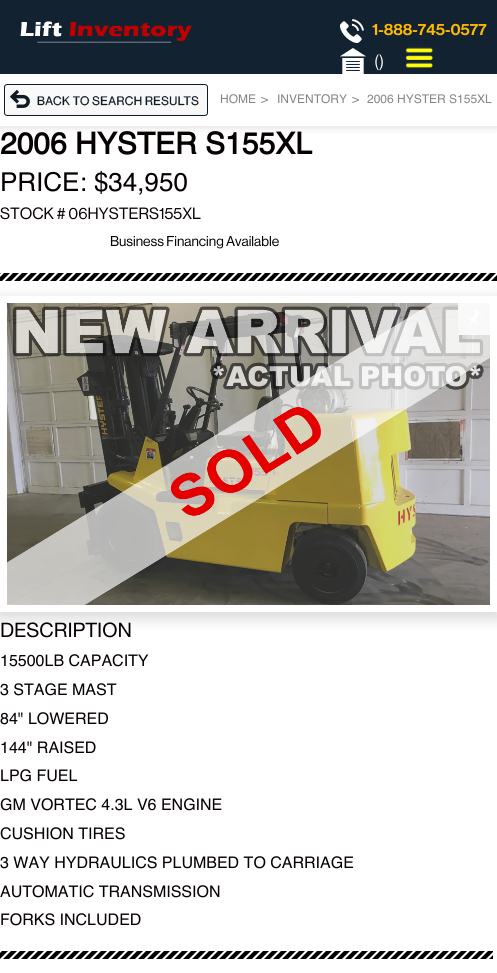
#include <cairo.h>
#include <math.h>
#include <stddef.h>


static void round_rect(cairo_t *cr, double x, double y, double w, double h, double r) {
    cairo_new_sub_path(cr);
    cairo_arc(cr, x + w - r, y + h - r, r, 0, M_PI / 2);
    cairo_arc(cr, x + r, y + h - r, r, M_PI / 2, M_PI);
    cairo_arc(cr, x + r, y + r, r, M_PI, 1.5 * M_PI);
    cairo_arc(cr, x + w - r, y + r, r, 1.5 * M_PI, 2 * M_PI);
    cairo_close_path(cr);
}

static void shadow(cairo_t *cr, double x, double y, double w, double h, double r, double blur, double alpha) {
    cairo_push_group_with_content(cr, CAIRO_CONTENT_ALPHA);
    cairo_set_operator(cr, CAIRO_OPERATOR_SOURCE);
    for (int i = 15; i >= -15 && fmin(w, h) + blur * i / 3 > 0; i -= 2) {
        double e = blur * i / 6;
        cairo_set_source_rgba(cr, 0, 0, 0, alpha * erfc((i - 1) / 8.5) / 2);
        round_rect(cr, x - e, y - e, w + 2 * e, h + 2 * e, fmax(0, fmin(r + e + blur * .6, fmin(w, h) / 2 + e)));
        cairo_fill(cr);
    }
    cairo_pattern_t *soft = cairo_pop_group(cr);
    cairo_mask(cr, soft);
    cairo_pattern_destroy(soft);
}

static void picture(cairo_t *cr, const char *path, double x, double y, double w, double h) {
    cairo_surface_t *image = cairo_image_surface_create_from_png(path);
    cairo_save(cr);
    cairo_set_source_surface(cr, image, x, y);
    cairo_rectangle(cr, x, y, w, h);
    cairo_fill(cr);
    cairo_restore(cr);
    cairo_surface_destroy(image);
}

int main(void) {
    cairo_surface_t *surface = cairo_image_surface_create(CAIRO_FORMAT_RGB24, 497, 973);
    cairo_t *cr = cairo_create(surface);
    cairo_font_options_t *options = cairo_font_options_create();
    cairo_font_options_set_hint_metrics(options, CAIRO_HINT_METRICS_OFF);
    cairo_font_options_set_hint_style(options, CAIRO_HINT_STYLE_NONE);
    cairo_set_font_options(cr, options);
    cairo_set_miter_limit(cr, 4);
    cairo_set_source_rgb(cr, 0.071, 0.133, 0.192);
    cairo_paint(cr);
    picture(cr, "img1.png", 20, 21, 172, 22);
    picture(cr, "img2.png", 340, 19, 24, 24);
    cairo_select_font_face(cr, "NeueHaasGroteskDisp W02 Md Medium", CAIRO_FONT_SLANT_NORMAL, CAIRO_FONT_WEIGHT_NORMAL);
    cairo_set_font_size(cr, 16);
    cairo_set_source_rgb(cr, 0.996, 0.725, 0);
    cairo_move_to(cr, 372, 35);
    cairo_show_text(cr, "1-888-745-0577");
    cairo_set_source_rgb(cr, 1, 1, 1);
    cairo_rectangle(cr, 0, 74, 497, 899);
    cairo_fill(cr);
    cairo_save(cr);
    cairo_set_fill_rule(cr, CAIRO_FILL_RULE_EVEN_ODD);
    cairo_new_path(cr);
    cairo_move_to(cr, 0, 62);
    cairo_line_to(cr, 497, 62);
    cairo_line_to(cr, 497, 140);
    cairo_line_to(cr, 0, 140);
    cairo_close_path(cr);
    cairo_move_to(cr, 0, 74);
    cairo_line_to(cr, 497, 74);
    cairo_line_to(cr, 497, 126);
    cairo_line_to(cr, 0, 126);
    cairo_close_path(cr);
    cairo_clip(cr);
    cairo_set_source_rgb(cr, 0.078, 0.078, 0.078);
    shadow(cr, 0, 75, 497, 52, 0, 4, 0.16);
    cairo_restore(cr);
    picture(cr, "img3.png", 340, 48, 26, 26);
    cairo_select_font_face(cr, "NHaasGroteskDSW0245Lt", CAIRO_FONT_SLANT_NORMAL, CAIRO_FONT_WEIGHT_NORMAL);
    cairo_set_font_size(cr, 18);
    cairo_move_to(cr, 374, 68);
    cairo_show_text(cr, "()");
    picture(cr, "img4.png", 405, 47, 29, 21);
    picture(cr, "img5.png", 4, 84, 204, 32);
    cairo_select_font_face(cr, "Helvetica", CAIRO_FONT_SLANT_NORMAL, CAIRO_FONT_WEIGHT_NORMAL);
    cairo_set_font_size(cr, 12);
    cairo_set_source_rgb(cr, 0.525, 0.525, 0.525);
    cairo_move_to(cr, 220, 103);
    cairo_show_text(cr, "HOME");
    cairo_move_to(cr, 261, 103);
    cairo_show_text(cr, ">");
    cairo_move_to(cr, 277, 103);
    cairo_show_text(cr, "INVENTORY");
    cairo_move_to(cr, 352, 103);
    cairo_show_text(cr, ">");
    cairo_move_to(cr, 367, 103);
    cairo_show_text(cr, "2006 HYSTER S155XL");
    cairo_select_font_face(cr, "Helvetica", CAIRO_FONT_SLANT_NORMAL, CAIRO_FONT_WEIGHT_BOLD);
    cairo_set_font_size(cr, 30);
    cairo_set_source_rgb(cr, 0.031, 0, 0);
    cairo_move_to(cr, 0, 154);
    cairo_show_text(cr, "2006 HYSTER S155XL");
    cairo_select_font_face(cr, "Helvetica", CAIRO_FONT_SLANT_NORMAL, CAIRO_FONT_WEIGHT_NORMAL);
    cairo_set_font_size(cr, 26);
    cairo_move_to(cr, 0, 191);
    cairo_show_text(cr, "PRICE: $34,950");
    cairo_select_font_face(cr, "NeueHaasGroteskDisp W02", CAIRO_FONT_SLANT_NORMAL, CAIRO_FONT_WEIGHT_NORMAL);
    cairo_set_font_size(cr, 16);
    cairo_move_to(cr, 0, 219);
    cairo_show_text(cr, "STOCK # 06HYSTERS155XL");
    cairo_set_font_size(cr, 14);
    cairo_set_source_rgb(cr, 0, 0, 0);
    cairo_move_to(cr, 110, 246);
    cairo_show_text(cr, "Business Financing Available");
    picture(cr, "img6.png", 0, 273, 497, 8);
    cairo_save(cr);
    cairo_set_fill_rule(cr, CAIRO_FILL_RULE_EVEN_ODD);
    cairo_new_path(cr);
    cairo_move_to(cr, 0, 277);
    cairo_line_to(cr, 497, 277);
    cairo_line_to(cr, 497, 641);
    cairo_line_to(cr, 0, 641);
    cairo_close_path(cr);
    cairo_move_to(cr, 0, 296);
    cairo_line_to(cr, 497, 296);
    cairo_line_to(cr, 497, 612);
    cairo_line_to(cr, 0, 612);
    cairo_close_path(cr);
    cairo_clip(cr);
    cairo_set_source_rgb(cr, 0.078, 0.078, 0.078);
    shadow(cr, -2, 299, 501, 320, 0, 7, 0.16);
    cairo_restore(cr);
    picture(cr, "img7.png", 7, 303, 483, 302);
    cairo_set_source_rgb(cr, 0.933, 0.933, 0.933);
    cairo_rectangle(cr, 458, 303, 32, 32);
    cairo_fill(cr);
    picture(cr, "img9.png", 468, 309, 14, 18);
    picture(cr, "img8.png", 7, 303, 483, 302);
    cairo_select_font_face(cr, "Helvetica Neue", CAIRO_FONT_SLANT_NORMAL, CAIRO_FONT_WEIGHT_NORMAL);
    cairo_set_font_size(cr, 20);
    cairo_set_source_rgb(cr, 0.031, 0, 0);
    cairo_move_to(cr, 0, 637);
    cairo_show_text(cr, "DESCRIPTION");
    cairo_select_font_face(cr, "Helvetica", CAIRO_FONT_SLANT_NORMAL, CAIRO_FONT_WEIGHT_NORMAL);
    cairo_set_font_size(cr, 16);
    cairo_move_to(cr, 0, 666);
    cairo_show_text(cr, "15500LB CAPACITY");
    cairo_move_to(cr, 0, 695);
    cairo_show_text(cr, "3 STAGE MAST");
    cairo_move_to(cr, 0, 724);
    cairo_show_text(cr, "84\" LOWERED");
    cairo_move_to(cr, 0, 753);
    cairo_show_text(cr, "144\" RAISED");
    cairo_move_to(cr, 0, 781);
    cairo_show_text(cr, "LPG FUEL");
    cairo_move_to(cr, 0, 810);
    cairo_show_text(cr, "GM VORTEC 4.3L V6 ENGINE");
    cairo_move_to(cr, 0, 839);
    cairo_show_text(cr, "CUSHION TIRES");
    cairo_move_to(cr, 0, 868);
    cairo_show_text(cr, "3 WAY HYDRAULICS PLUMBED TO CARRIAGE");
    cairo_move_to(cr, 0, 897);
    cairo_show_text(cr, "AUTOMATIC TRANSMISSION");
    cairo_move_to(cr, 0, 925);
    cairo_show_text(cr, "FORKS INCLUDED");
    picture(cr, "img10.png", 0, 951, 493, 8);
    cairo_surface_write_to_png(surface, "page.png");
    cairo_font_options_destroy(options);
    cairo_destroy(cr);
    cairo_surface_destroy(surface);
    return 0;
}
